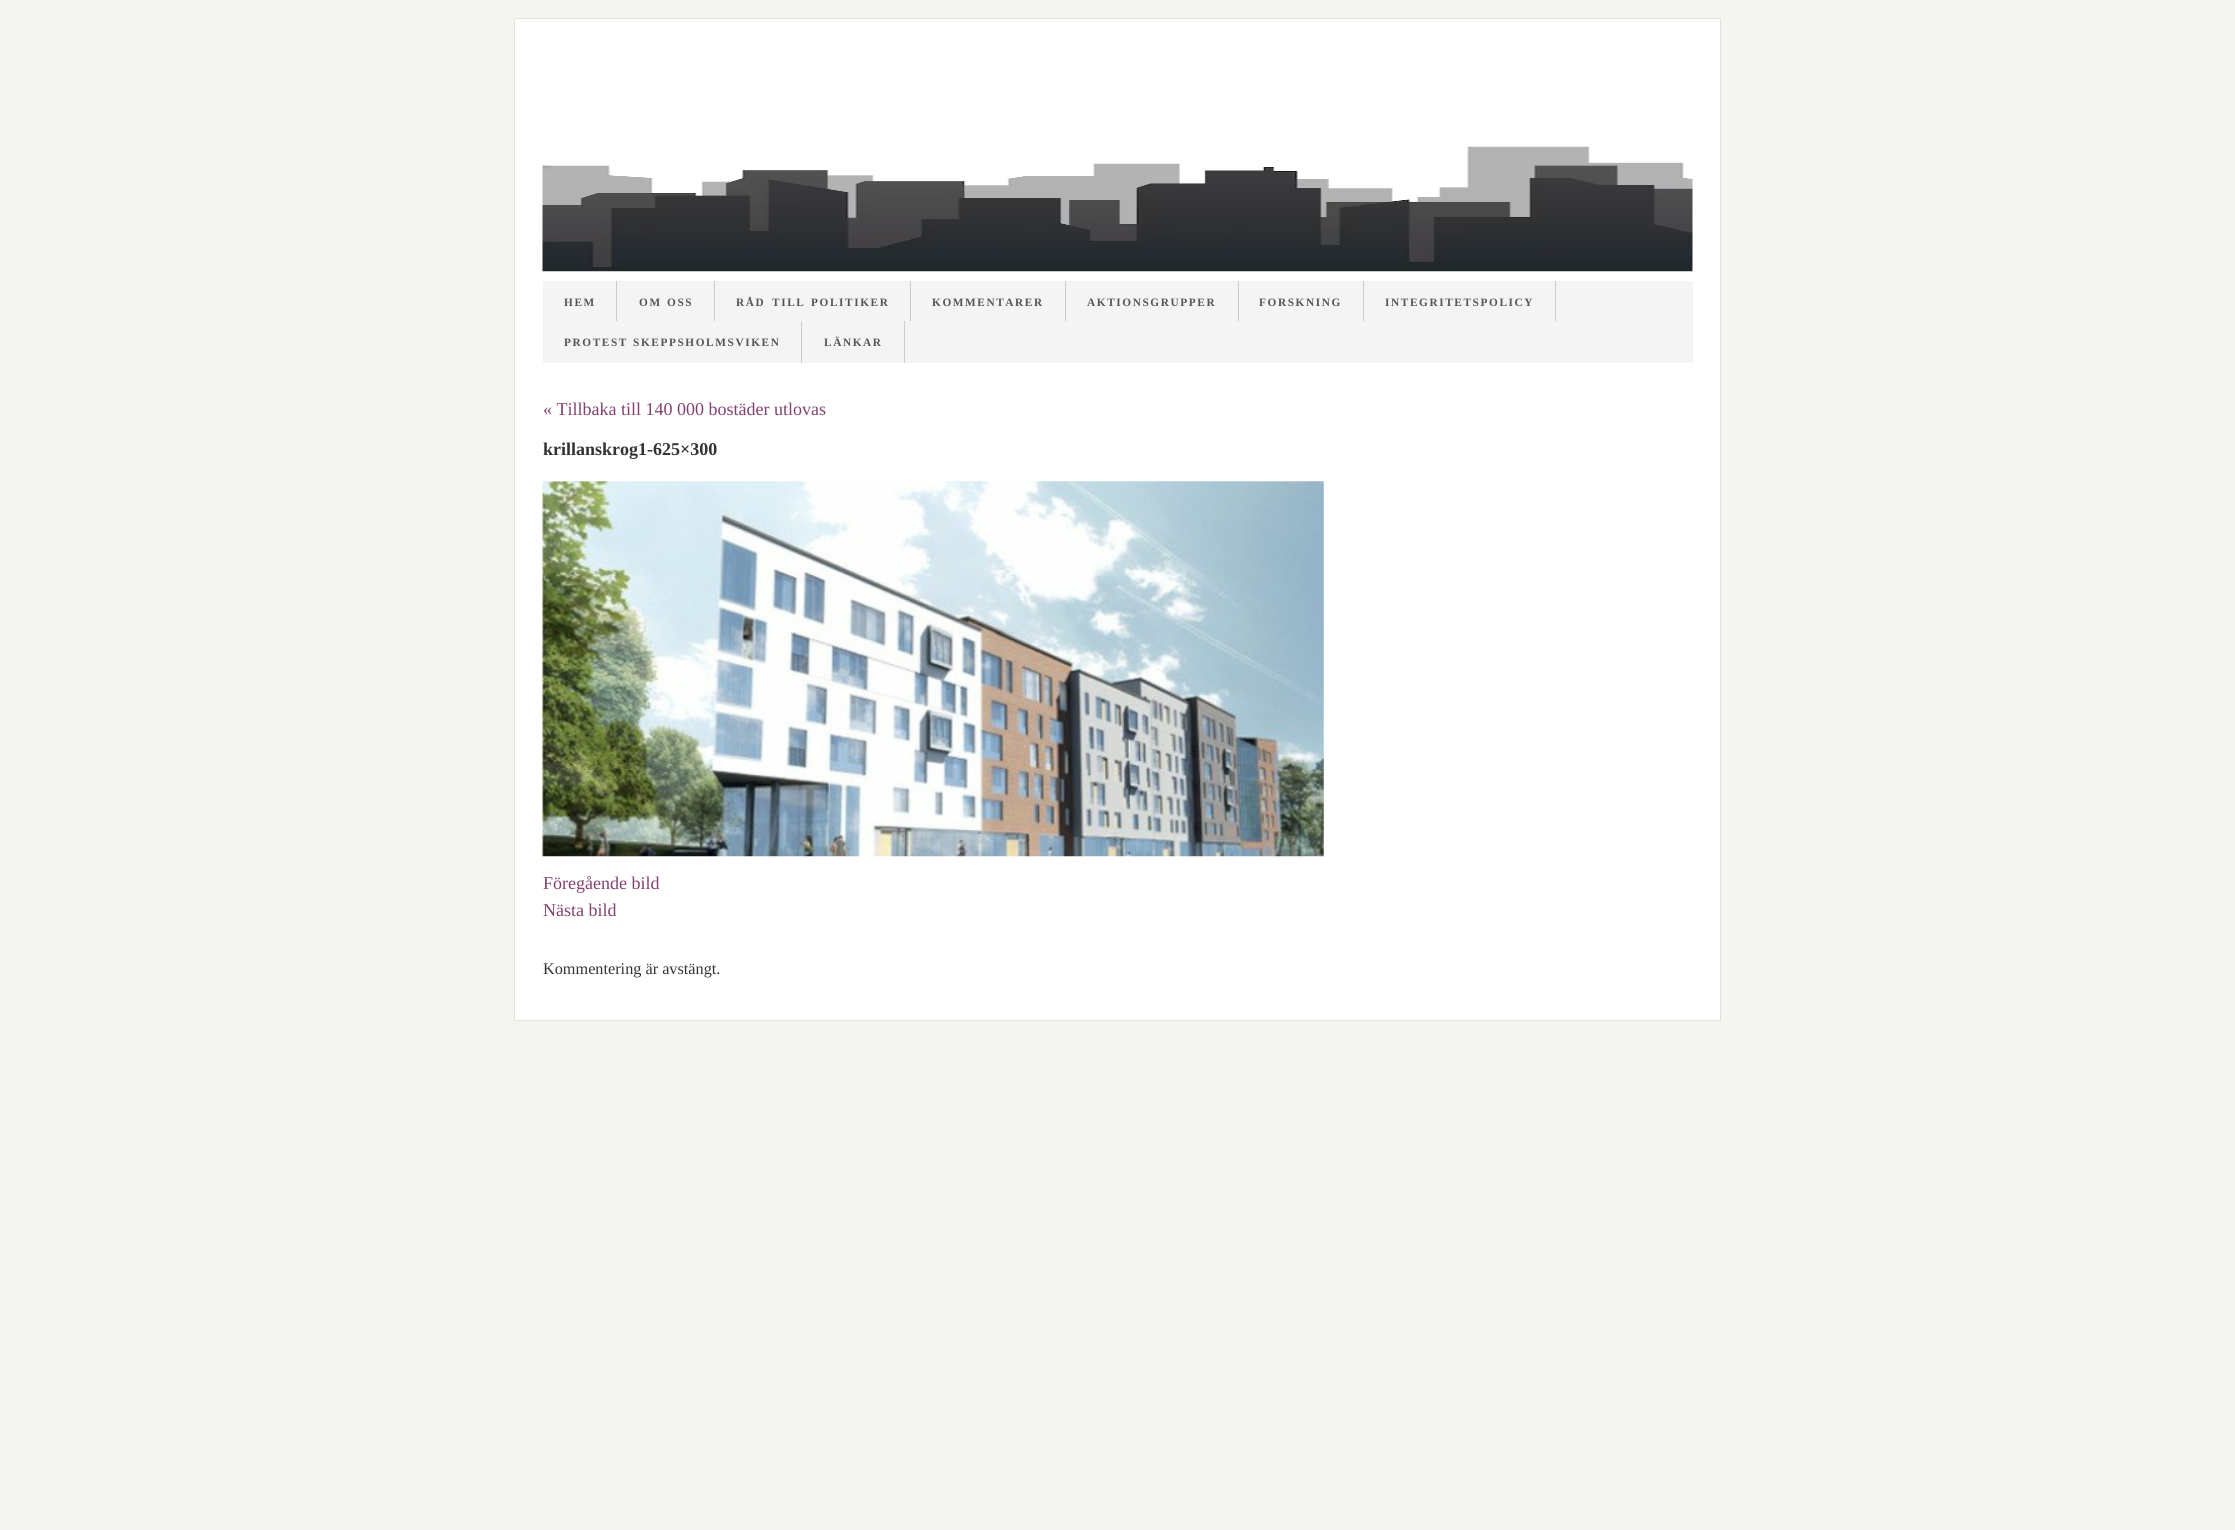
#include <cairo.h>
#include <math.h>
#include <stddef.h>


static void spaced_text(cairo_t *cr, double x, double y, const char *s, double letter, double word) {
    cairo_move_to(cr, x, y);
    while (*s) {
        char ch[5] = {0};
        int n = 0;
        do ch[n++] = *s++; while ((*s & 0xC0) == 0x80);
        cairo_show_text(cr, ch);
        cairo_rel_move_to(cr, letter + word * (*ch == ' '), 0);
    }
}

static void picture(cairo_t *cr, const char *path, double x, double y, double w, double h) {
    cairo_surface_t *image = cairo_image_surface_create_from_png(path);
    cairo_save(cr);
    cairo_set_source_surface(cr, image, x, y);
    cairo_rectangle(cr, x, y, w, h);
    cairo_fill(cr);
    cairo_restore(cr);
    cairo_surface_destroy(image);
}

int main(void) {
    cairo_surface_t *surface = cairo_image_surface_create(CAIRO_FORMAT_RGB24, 2235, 1530);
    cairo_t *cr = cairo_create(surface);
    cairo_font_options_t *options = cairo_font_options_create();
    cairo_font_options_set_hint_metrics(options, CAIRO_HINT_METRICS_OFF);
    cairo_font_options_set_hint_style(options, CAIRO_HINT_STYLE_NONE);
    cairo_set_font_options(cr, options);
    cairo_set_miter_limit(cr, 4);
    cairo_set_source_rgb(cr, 0.957, 0.957, 0.949);
    cairo_paint(cr);
    cairo_set_source_rgb(cr, 1, 1, 1);
    cairo_rectangle(cr, 514.5, 18.5, 1206, 1002);
    cairo_fill_preserve(cr);
    cairo_set_source_rgb(cr, 0.882, 0.898, 0.843);
    cairo_set_line_width(cr, 1);
    cairo_stroke(cr);
    picture(cr, "img1.png", 542, 146, 1151, 126);
    cairo_set_source_rgb(cr, 0.957, 0.957, 0.957);
    cairo_rectangle(cr, 543, 281, 1150, 82);
    cairo_fill(cr);
    cairo_set_source_rgb(cr, 0.8, 0.8, 0.8);
    cairo_rectangle(cr, 616, 281, 1, 40);
    cairo_fill(cr);
    cairo_select_font_face(cr, "Liberation Serif", CAIRO_FONT_SLANT_NORMAL, CAIRO_FONT_WEIGHT_BOLD);
    cairo_set_font_size(cr, 11.3);
    cairo_set_source_rgb(cr, 0.333, 0.333, 0.333);
    spaced_text(cr, 564, 306, "HEM", 1.6, 0);
    cairo_set_source_rgb(cr, 0.8, 0.8, 0.8);
    cairo_rectangle(cr, 714, 281, 1, 40);
    cairo_fill(cr);
    cairo_set_source_rgb(cr, 0.333, 0.333, 0.333);
    spaced_text(cr, 639, 306, "OM", 1.6, 0);
    spaced_text(cr, 667, 306, "OSS", 1.6, 0);
    cairo_set_source_rgb(cr, 0.8, 0.8, 0.8);
    cairo_rectangle(cr, 910, 281, 1, 40);
    cairo_fill(cr);
    cairo_set_source_rgb(cr, 0.333, 0.333, 0.333);
    spaced_text(cr, 736, 306, "RÅD", 1.6, 0);
    spaced_text(cr, 772, 306, "TILL", 1.6, 0);
    spaced_text(cr, 811, 306, "POLITIKER", 1.6, 0);
    cairo_set_source_rgb(cr, 0.8, 0.8, 0.8);
    cairo_rectangle(cr, 1065, 281, 1, 40);
    cairo_fill(cr);
    cairo_set_source_rgb(cr, 0.333, 0.333, 0.333);
    spaced_text(cr, 932, 306, "KOMMENTARER", 1.6, 0);
    cairo_set_source_rgb(cr, 0.8, 0.8, 0.8);
    cairo_rectangle(cr, 1238, 281, 1, 40);
    cairo_fill(cr);
    cairo_set_source_rgb(cr, 0.333, 0.333, 0.333);
    spaced_text(cr, 1087, 306, "AKTIONSGRUPPER", 1.6, 0);
    cairo_set_source_rgb(cr, 0.8, 0.8, 0.8);
    cairo_rectangle(cr, 1363, 281, 1, 40);
    cairo_fill(cr);
    cairo_set_source_rgb(cr, 0.333, 0.333, 0.333);
    spaced_text(cr, 1259, 306, "FORSKNING", 1.6, 0);
    cairo_set_source_rgb(cr, 0.8, 0.8, 0.8);
    cairo_rectangle(cr, 1555, 281, 1, 40);
    cairo_fill(cr);
    cairo_set_source_rgb(cr, 0.333, 0.333, 0.333);
    spaced_text(cr, 1385, 306, "INTEGRITETSPOLICY", 1.6, 0);
    cairo_set_source_rgb(cr, 0.8, 0.8, 0.8);
    cairo_rectangle(cr, 801, 321, 1, 42);
    cairo_fill(cr);
    cairo_set_source_rgb(cr, 0.333, 0.333, 0.333);
    spaced_text(cr, 564, 346, "PROTEST", 1.6, 0);
    spaced_text(cr, 633, 346, "SKEPPSHOLMSVIKEN", 1.6, 0);
    cairo_set_source_rgb(cr, 0.8, 0.8, 0.8);
    cairo_rectangle(cr, 904, 321, 1, 42);
    cairo_fill(cr);
    cairo_set_source_rgb(cr, 0.333, 0.333, 0.333);
    spaced_text(cr, 824, 346, "LÄNKAR", 1.6, 0);
    cairo_select_font_face(cr, "Liberation Serif", CAIRO_FONT_SLANT_NORMAL, CAIRO_FONT_WEIGHT_NORMAL);
    cairo_set_font_size(cr, 18);
    cairo_set_source_rgb(cr, 0.514, 0.255, 0.439);
    cairo_move_to(cr, 543, 415);
    cairo_show_text(cr, "« Tillbaka till 140 000 bostäder utlovas");
    cairo_select_font_face(cr, "Liberation Serif", CAIRO_FONT_SLANT_NORMAL, CAIRO_FONT_WEIGHT_BOLD);
    cairo_set_source_rgb(cr, 0.2, 0.2, 0.2);
    cairo_move_to(cr, 543, 455);
    cairo_show_text(cr, "krillanskrog1-625×300");
    picture(cr, "img2.png", 542, 481, 782, 376);
    cairo_select_font_face(cr, "Liberation Serif", CAIRO_FONT_SLANT_NORMAL, CAIRO_FONT_WEIGHT_NORMAL);
    cairo_set_source_rgb(cr, 0.514, 0.255, 0.439);
    cairo_move_to(cr, 543, 889);
    cairo_show_text(cr, "Föregående bild");
    cairo_move_to(cr, 543, 916);
    cairo_show_text(cr, "Nästa bild");
    cairo_set_font_size(cr, 16.25);
    cairo_set_source_rgb(cr, 0.2, 0.2, 0.2);
    cairo_move_to(cr, 543, 974);
    cairo_show_text(cr, "Kommentering är avstängt.");
    cairo_surface_write_to_png(surface, "page.png");
    cairo_font_options_destroy(options);
    cairo_destroy(cr);
    cairo_surface_destroy(surface);
    return 0;
}
